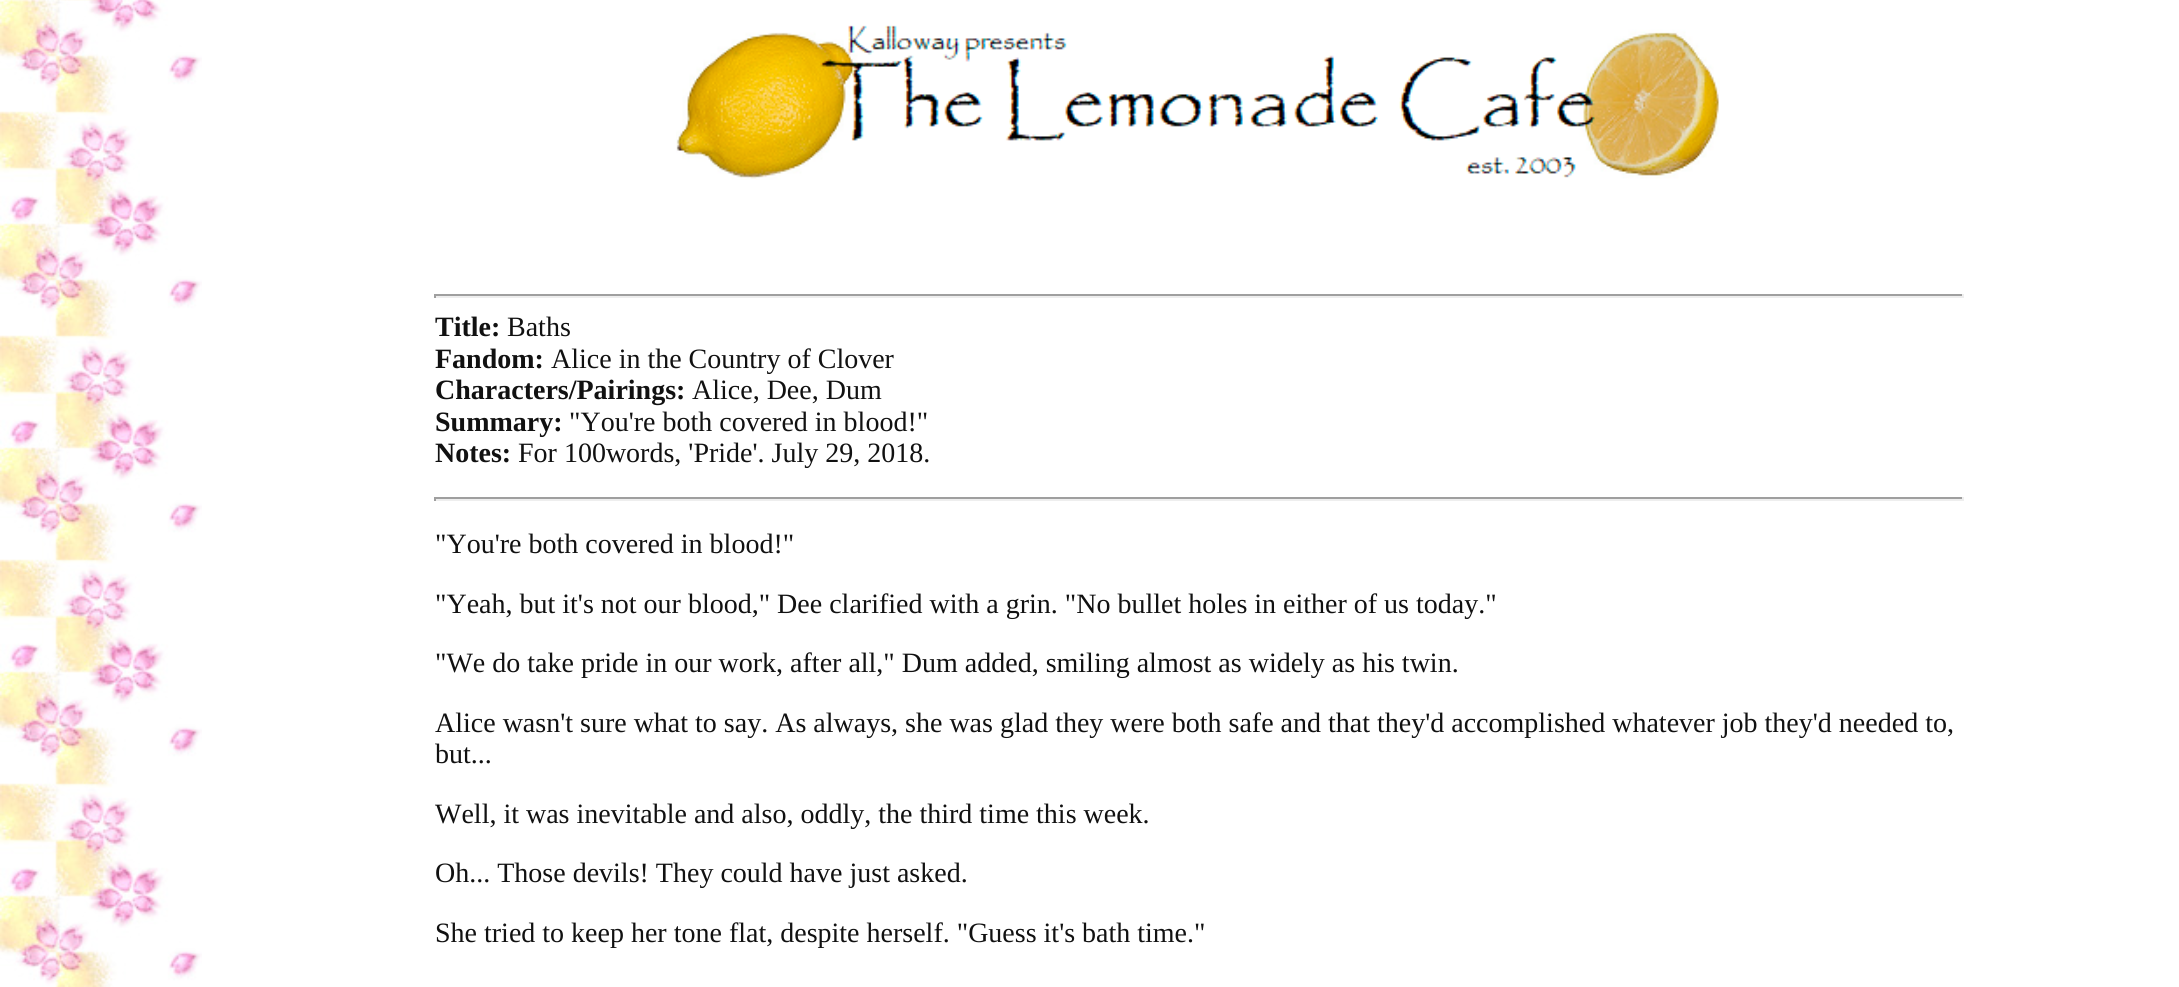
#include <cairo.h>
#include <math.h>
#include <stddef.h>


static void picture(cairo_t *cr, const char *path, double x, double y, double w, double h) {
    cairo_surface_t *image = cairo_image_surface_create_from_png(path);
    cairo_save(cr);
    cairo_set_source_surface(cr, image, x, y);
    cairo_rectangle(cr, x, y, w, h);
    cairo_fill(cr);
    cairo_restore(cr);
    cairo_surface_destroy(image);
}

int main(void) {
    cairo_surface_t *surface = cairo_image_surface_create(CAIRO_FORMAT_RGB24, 2179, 987);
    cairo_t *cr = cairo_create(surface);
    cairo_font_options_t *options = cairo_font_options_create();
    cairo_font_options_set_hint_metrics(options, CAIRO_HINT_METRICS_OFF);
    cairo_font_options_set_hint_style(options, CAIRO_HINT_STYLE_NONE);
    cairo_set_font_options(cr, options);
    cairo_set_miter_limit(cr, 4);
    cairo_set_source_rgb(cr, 1, 1, 1);
    cairo_paint(cr);
    picture(cr, "img1.png", 0, 0, 202, 987);
    picture(cr, "img2.png", 14, 14, 188, 973);
    picture(cr, "img3.png", 676, 25, 1044, 155);
    cairo_set_source_rgb(cr, 0.624, 0.624, 0.624);
    cairo_rectangle(cr, 434, 294, 1530, 2);
    cairo_fill(cr);
    cairo_set_source_rgb(cr, 0.933, 0.933, 0.933);
    cairo_rectangle(cr, 1962, 294, 2, 4);
    cairo_fill(cr);
    cairo_rectangle(cr, 434, 296, 1530, 2);
    cairo_fill(cr);
    cairo_set_source_rgb(cr, 0.624, 0.624, 0.624);
    cairo_rectangle(cr, 434, 294, 2, 4);
    cairo_fill(cr);
    cairo_select_font_face(cr, "Liberation Serif", CAIRO_FONT_SLANT_NORMAL, CAIRO_FONT_WEIGHT_BOLD);
    cairo_set_font_size(cr, 28);
    cairo_set_source_rgb(cr, 0.067, 0.067, 0.067);
    cairo_move_to(cr, 435, 336);
    cairo_show_text(cr, "Title:");
    cairo_select_font_face(cr, "Liberation Serif", CAIRO_FONT_SLANT_NORMAL, CAIRO_FONT_WEIGHT_NORMAL);
    cairo_move_to(cr, 507, 336);
    cairo_show_text(cr, "Baths");
    cairo_select_font_face(cr, "Liberation Serif", CAIRO_FONT_SLANT_NORMAL, CAIRO_FONT_WEIGHT_BOLD);
    cairo_move_to(cr, 435, 368);
    cairo_show_text(cr, "Fandom:");
    cairo_select_font_face(cr, "Liberation Serif", CAIRO_FONT_SLANT_NORMAL, CAIRO_FONT_WEIGHT_NORMAL);
    cairo_move_to(cr, 551, 368);
    cairo_show_text(cr, "Alice in the Country of Clover");
    cairo_select_font_face(cr, "Liberation Serif", CAIRO_FONT_SLANT_NORMAL, CAIRO_FONT_WEIGHT_BOLD);
    cairo_move_to(cr, 435, 399);
    cairo_show_text(cr, "Characters/Pairings:");
    cairo_select_font_face(cr, "Liberation Serif", CAIRO_FONT_SLANT_NORMAL, CAIRO_FONT_WEIGHT_NORMAL);
    cairo_move_to(cr, 692, 399);
    cairo_show_text(cr, "Alice, Dee, Dum");
    cairo_select_font_face(cr, "Liberation Serif", CAIRO_FONT_SLANT_NORMAL, CAIRO_FONT_WEIGHT_BOLD);
    cairo_move_to(cr, 435, 431);
    cairo_show_text(cr, "Summary:");
    cairo_select_font_face(cr, "Liberation Serif", CAIRO_FONT_SLANT_NORMAL, CAIRO_FONT_WEIGHT_NORMAL);
    cairo_move_to(cr, 569, 431);
    cairo_show_text(cr, "\"You're both covered in blood!\"");
    cairo_select_font_face(cr, "Liberation Serif", CAIRO_FONT_SLANT_NORMAL, CAIRO_FONT_WEIGHT_BOLD);
    cairo_move_to(cr, 435, 462);
    cairo_show_text(cr, "Notes:");
    cairo_select_font_face(cr, "Liberation Serif", CAIRO_FONT_SLANT_NORMAL, CAIRO_FONT_WEIGHT_NORMAL);
    cairo_move_to(cr, 518, 462);
    cairo_show_text(cr, "For 100words, 'Pride'. July 29, 2018.");
    cairo_set_source_rgb(cr, 0.624, 0.624, 0.624);
    cairo_rectangle(cr, 434, 497, 1530, 2);
    cairo_fill(cr);
    cairo_set_source_rgb(cr, 0.933, 0.933, 0.933);
    cairo_rectangle(cr, 1962, 497, 2, 4);
    cairo_fill(cr);
    cairo_rectangle(cr, 434, 499, 1530, 2);
    cairo_fill(cr);
    cairo_set_source_rgb(cr, 0.624, 0.624, 0.624);
    cairo_rectangle(cr, 434, 497, 2, 4);
    cairo_fill(cr);
    cairo_set_source_rgb(cr, 0.067, 0.067, 0.067);
    cairo_move_to(cr, 435, 553);
    cairo_show_text(cr, "\"You're both covered in blood!\"");
    cairo_move_to(cr, 435, 613);
    cairo_show_text(cr, "\"Yeah, but it's not our blood,\" Dee clarified with a grin. \"No bullet holes in either of us today.\"");
    cairo_move_to(cr, 435, 672);
    cairo_show_text(cr, "\"We do take pride in our work, after all,\" Dum added, smiling almost as widely as his twin.");
    cairo_move_to(cr, 435, 732);
    cairo_show_text(cr, "Alice wasn't sure what to say. As always, she was glad they were both safe and that they'd accomplished whatever job they'd needed to,");
    cairo_move_to(cr, 435, 763);
    cairo_show_text(cr, "but...");
    cairo_move_to(cr, 435, 823);
    cairo_show_text(cr, "Well, it was inevitable and also, oddly, the third time this week.");
    cairo_move_to(cr, 435, 882);
    cairo_show_text(cr, "Oh... Those devils! They could have just asked.");
    cairo_move_to(cr, 435, 942);
    cairo_show_text(cr, "She tried to keep her tone flat, despite herself. \"Guess it's bath time.\"");
    cairo_surface_write_to_png(surface, "page.png");
    cairo_font_options_destroy(options);
    cairo_destroy(cr);
    cairo_surface_destroy(surface);
    return 0;
}
